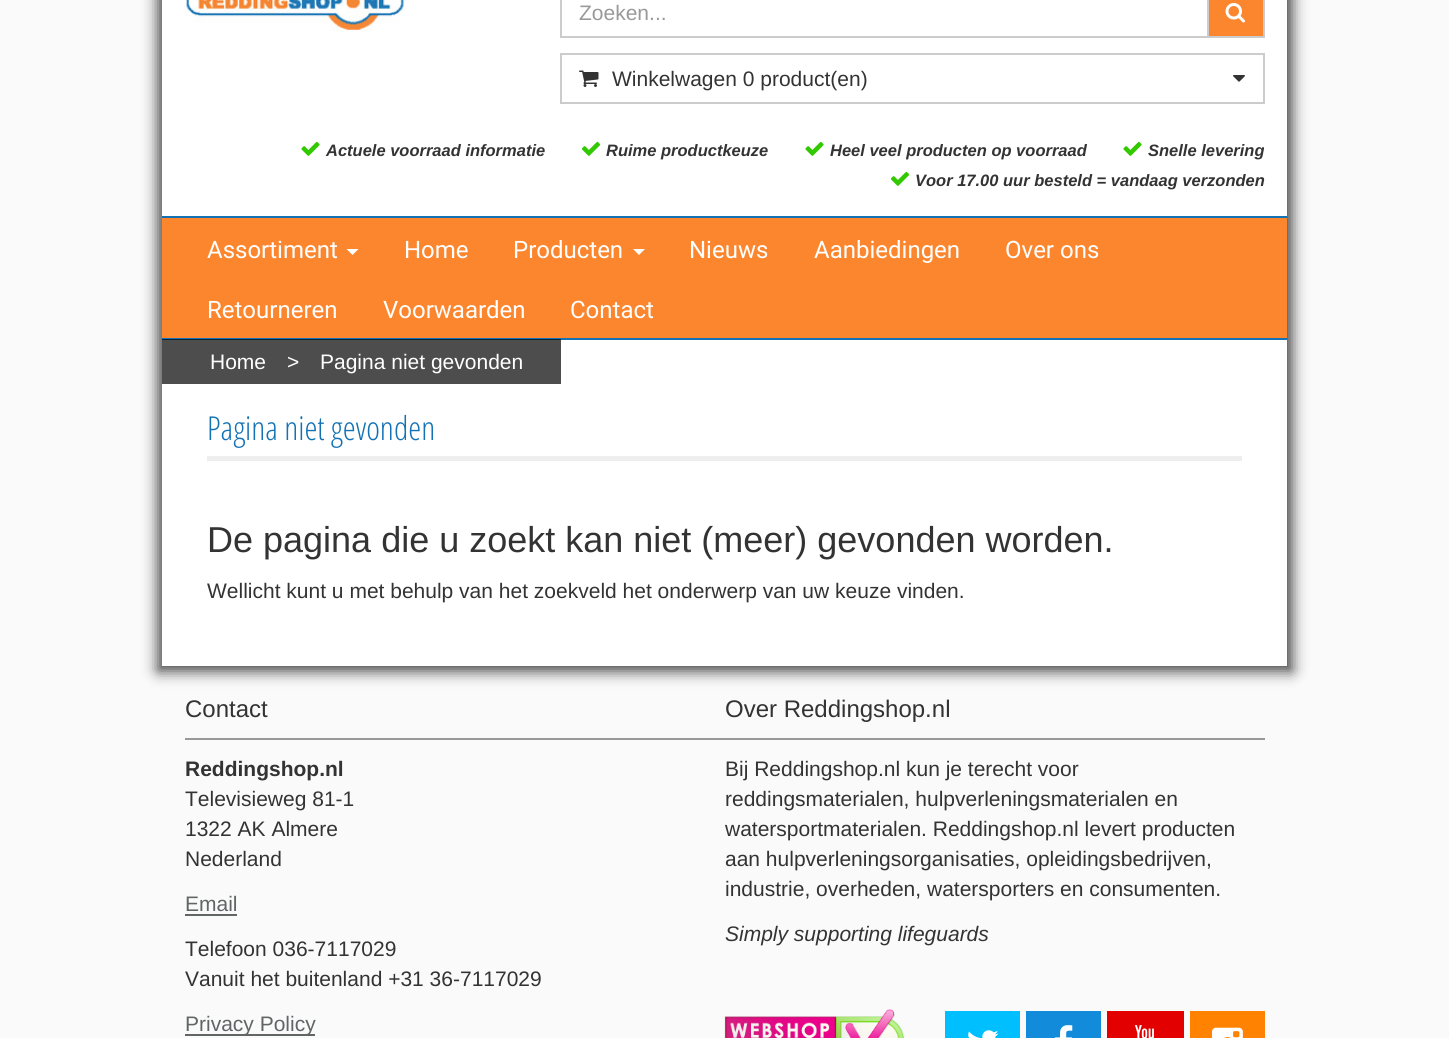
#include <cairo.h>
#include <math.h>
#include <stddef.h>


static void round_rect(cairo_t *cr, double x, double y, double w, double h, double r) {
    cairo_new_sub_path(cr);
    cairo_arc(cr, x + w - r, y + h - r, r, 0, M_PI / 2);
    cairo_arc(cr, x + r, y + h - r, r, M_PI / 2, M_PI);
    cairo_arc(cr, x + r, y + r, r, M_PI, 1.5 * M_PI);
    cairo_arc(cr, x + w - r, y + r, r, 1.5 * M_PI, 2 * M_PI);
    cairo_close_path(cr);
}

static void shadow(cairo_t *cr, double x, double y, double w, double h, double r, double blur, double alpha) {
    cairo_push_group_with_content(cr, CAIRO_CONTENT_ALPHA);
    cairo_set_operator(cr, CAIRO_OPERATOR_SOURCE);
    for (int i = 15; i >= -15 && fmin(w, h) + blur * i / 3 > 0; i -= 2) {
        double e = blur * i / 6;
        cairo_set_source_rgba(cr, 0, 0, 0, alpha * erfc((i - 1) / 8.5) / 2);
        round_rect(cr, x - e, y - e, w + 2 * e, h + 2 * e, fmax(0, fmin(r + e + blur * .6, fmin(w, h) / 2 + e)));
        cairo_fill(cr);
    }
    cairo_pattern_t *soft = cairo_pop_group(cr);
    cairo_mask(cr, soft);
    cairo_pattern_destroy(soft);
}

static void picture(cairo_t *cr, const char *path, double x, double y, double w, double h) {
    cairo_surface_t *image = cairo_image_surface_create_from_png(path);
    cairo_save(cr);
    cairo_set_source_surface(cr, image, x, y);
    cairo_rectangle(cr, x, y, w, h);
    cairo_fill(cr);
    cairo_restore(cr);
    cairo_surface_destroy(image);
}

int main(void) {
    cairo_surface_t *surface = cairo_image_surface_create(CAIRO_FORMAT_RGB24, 1449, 1038);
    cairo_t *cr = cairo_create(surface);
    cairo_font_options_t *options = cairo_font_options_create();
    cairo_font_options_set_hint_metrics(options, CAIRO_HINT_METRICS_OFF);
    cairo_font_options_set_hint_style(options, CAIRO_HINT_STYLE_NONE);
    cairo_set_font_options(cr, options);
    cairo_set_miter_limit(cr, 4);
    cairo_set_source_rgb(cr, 0.98, 0.98, 0.98);
    cairo_paint(cr);
    cairo_set_source_rgb(cr, 0, 0, 0);
    shadow(cr, 158, -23, 1134, 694, 0, 7.5, 0.75);
    cairo_set_source_rgb(cr, 1, 1, 1);
    cairo_rectangle(cr, 162, 0, 1125, 666);
    cairo_fill(cr);
    cairo_set_source_rgb(cr, 0.302, 0.302, 0.302);
    cairo_rectangle(cr, 162, 340, 399, 44);
    cairo_fill(cr);
    picture(cr, "img1.png", 185, 0, 221, 31);
    cairo_set_source_rgb(cr, 0.8, 0.8, 0.8);
    cairo_rectangle(cr, 1263, 0, 2, 38);
    cairo_fill(cr);
    cairo_rectangle(cr, 1208, 36, 57, 2);
    cairo_fill(cr);
    cairo_rectangle(cr, 561, -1, 647, 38);
    cairo_stroke(cr);
    cairo_select_font_face(cr, "Liberation Sans", CAIRO_FONT_SLANT_NORMAL, CAIRO_FONT_WEIGHT_NORMAL);
    cairo_set_font_size(cr, 21);
    cairo_set_source_rgb(cr, 0.6, 0.6, 0.6);
    cairo_move_to(cr, 579, 20);
    cairo_show_text(cr, "Zoeken...");
    cairo_set_source_rgb(cr, 0.988, 0.525, 0.18);
    cairo_rectangle(cr, 1209, 0, 54, 36);
    cairo_fill(cr);
    picture(cr, "img2.png", 1225, 3, 20, 20);
    cairo_rectangle(cr, 561, 54, 703, 49);
    cairo_set_source_rgb(cr, 0.8, 0.8, 0.8);
    cairo_stroke(cr);
    picture(cr, "img3.png", 579, 70, 20, 17);
    cairo_set_source_rgb(cr, 0.2, 0.2, 0.2);
    cairo_move_to(cr, 612, 86);
    cairo_show_text(cr, "Winkelwagen 0 product(en)");
    picture(cr, "img4.png", 1233, 75, 12, 7);
    picture(cr, "img5.png", 301, 141, 19, 15);
    cairo_select_font_face(cr, "Liberation Sans", CAIRO_FONT_SLANT_ITALIC, CAIRO_FONT_WEIGHT_BOLD);
    cairo_set_font_size(cr, 16.5);
    cairo_move_to(cr, 326, 156);
    cairo_show_text(cr, "Actuele voorraad informatie");
    picture(cr, "img6.png", 581, 141, 20, 15);
    cairo_move_to(cr, 606, 156);
    cairo_show_text(cr, "Ruime productkeuze");
    picture(cr, "img5.png", 805, 141, 19, 15);
    cairo_move_to(cr, 830, 156);
    cairo_show_text(cr, "Heel veel producten op voorraad");
    picture(cr, "img5.png", 1123, 141, 19, 15);
    cairo_move_to(cr, 1148, 156);
    cairo_show_text(cr, "Snelle levering");
    picture(cr, "img6.png", 890, 171, 20, 15);
    cairo_move_to(cr, 915, 186);
    cairo_show_text(cr, "Voor 17.00 uur besteld = vandaag verzonden");
    cairo_set_source_rgb(cr, 0.988, 0.525, 0.18);
    cairo_rectangle(cr, 162, 218, 1125, 120);
    cairo_fill(cr);
    cairo_set_source_rgb(cr, 0.075, 0.447, 0.706);
    cairo_rectangle(cr, 162, 216, 1125, 2);
    cairo_fill(cr);
    cairo_rectangle(cr, 162, 338, 1125, 2);
    cairo_fill(cr);
    cairo_set_source_rgb(cr, 0.024, 0.133, 0.212);
    cairo_rectangle(cr, 162, 339, 399, 1);
    cairo_fill(cr);
    cairo_select_font_face(cr, "Roboto", CAIRO_FONT_SLANT_NORMAL, CAIRO_FONT_WEIGHT_NORMAL);
    cairo_set_font_size(cr, 24);
    cairo_set_source_rgb(cr, 1, 1, 1);
    cairo_move_to(cr, 207, 258);
    cairo_show_text(cr, "Assortiment");
    cairo_new_path(cr);
    cairo_move_to(cr, 346.5, 249);
    cairo_line_to(cr, 358.5, 249);
    cairo_line_to(cr, 352.5, 255);
    cairo_close_path(cr);
    cairo_fill(cr);
    cairo_move_to(cr, 404, 258);
    cairo_show_text(cr, "Home");
    cairo_move_to(cr, 513, 258);
    cairo_show_text(cr, "Producten");
    cairo_new_path(cr);
    cairo_move_to(cr, 633, 249);
    cairo_line_to(cr, 645, 249);
    cairo_line_to(cr, 639, 255);
    cairo_close_path(cr);
    cairo_fill(cr);
    cairo_move_to(cr, 689, 258);
    cairo_show_text(cr, "Nieuws");
    cairo_move_to(cr, 814, 258);
    cairo_show_text(cr, "Aanbiedingen");
    cairo_move_to(cr, 1005, 258);
    cairo_show_text(cr, "Over ons");
    cairo_move_to(cr, 207, 318);
    cairo_show_text(cr, "Retourneren");
    cairo_move_to(cr, 383, 318);
    cairo_show_text(cr, "Voorwaarden");
    cairo_move_to(cr, 570, 318);
    cairo_show_text(cr, "Contact");
    cairo_select_font_face(cr, "Liberation Sans", CAIRO_FONT_SLANT_NORMAL, CAIRO_FONT_WEIGHT_NORMAL);
    cairo_set_font_size(cr, 21);
    cairo_move_to(cr, 210, 369);
    cairo_show_text(cr, "Home");
    cairo_move_to(cr, 287, 369);
    cairo_show_text(cr, ">");
    cairo_move_to(cr, 320, 369);
    cairo_show_text(cr, "Pagina niet gevonden");
    cairo_set_source_rgb(cr, 0.933, 0.933, 0.933);
    cairo_rectangle(cr, 207, 456, 1035, 5);
    cairo_fill(cr);
    cairo_select_font_face(cr, "Open Sans Condensed Light", CAIRO_FONT_SLANT_NORMAL, CAIRO_FONT_WEIGHT_NORMAL);
    cairo_set_font_size(cr, 33);
    cairo_set_source_rgb(cr, 0.075, 0.447, 0.706);
    cairo_move_to(cr, 207, 440);
    cairo_show_text(cr, "Pagina niet gevonden");
    cairo_select_font_face(cr, "Liberation Sans", CAIRO_FONT_SLANT_NORMAL, CAIRO_FONT_WEIGHT_NORMAL);
    cairo_set_font_size(cr, 36);
    cairo_set_source_rgb(cr, 0.2, 0.2, 0.2);
    cairo_move_to(cr, 207, 552);
    cairo_show_text(cr, "De pagina die u zoekt kan niet (meer) gevonden worden.");
    cairo_set_font_size(cr, 21);
    cairo_move_to(cr, 207, 598);
    cairo_show_text(cr, "Wellicht kunt u met behulp van het zoekveld het onderwerp van uw keuze vinden.");
    cairo_set_source_rgb(cr, 0.6, 0.6, 0.6);
    cairo_rectangle(cr, 185, 738, 1080, 2);
    cairo_fill(cr);
    cairo_set_font_size(cr, 24);
    cairo_set_source_rgb(cr, 0.2, 0.2, 0.2);
    cairo_move_to(cr, 185, 717);
    cairo_show_text(cr, "Contact");
    cairo_select_font_face(cr, "Liberation Sans", CAIRO_FONT_SLANT_NORMAL, CAIRO_FONT_WEIGHT_BOLD);
    cairo_set_font_size(cr, 21);
    cairo_move_to(cr, 185, 776);
    cairo_show_text(cr, "Reddingshop.nl");
    cairo_select_font_face(cr, "Liberation Sans", CAIRO_FONT_SLANT_NORMAL, CAIRO_FONT_WEIGHT_NORMAL);
    cairo_move_to(cr, 185, 806);
    cairo_show_text(cr, "Televisieweg 81-1");
    cairo_move_to(cr, 185, 836);
    cairo_show_text(cr, "1322 AK Almere");
    cairo_move_to(cr, 185, 866);
    cairo_show_text(cr, "Nederland");
    cairo_set_source_rgb(cr, 0.38, 0.396, 0.4);
    cairo_move_to(cr, 185, 911);
    cairo_show_text(cr, "Email");
    cairo_rectangle(cr, 185, 914, 52, 2);
    cairo_fill(cr);
    cairo_set_source_rgb(cr, 0.2, 0.2, 0.2);
    cairo_move_to(cr, 185, 956);
    cairo_show_text(cr, "Telefoon 036-7117029");
    cairo_move_to(cr, 185, 986);
    cairo_show_text(cr, "Vanuit het buitenland +31 36-7117029");
    cairo_set_source_rgb(cr, 0.38, 0.396, 0.4);
    cairo_rectangle(cr, 185, 1034, 130, 2);
    cairo_fill(cr);
    cairo_move_to(cr, 185, 1031);
    cairo_show_text(cr, "Privacy Policy");
    cairo_set_font_size(cr, 24);
    cairo_set_source_rgb(cr, 0.2, 0.2, 0.2);
    cairo_move_to(cr, 725, 717);
    cairo_show_text(cr, "Over Reddingshop.nl");
    cairo_set_font_size(cr, 21);
    cairo_move_to(cr, 725, 776);
    cairo_show_text(cr, "Bij Reddingshop.nl kun je terecht voor");
    cairo_move_to(cr, 725, 806);
    cairo_show_text(cr, "reddingsmaterialen, hulpverleningsmaterialen en");
    cairo_move_to(cr, 725, 836);
    cairo_show_text(cr, "watersportmaterialen. Reddingshop.nl levert producten");
    cairo_move_to(cr, 725, 866);
    cairo_show_text(cr, "aan hulpverleningsorganisaties, opleidingsbedrijven,");
    cairo_move_to(cr, 725, 896);
    cairo_show_text(cr, "industrie, overheden, watersporters en consumenten.");
    cairo_select_font_face(cr, "Liberation Sans", CAIRO_FONT_SLANT_ITALIC, CAIRO_FONT_WEIGHT_NORMAL);
    cairo_move_to(cr, 725, 941);
    cairo_show_text(cr, "Simply supporting lifeguards");
    picture(cr, "img7.png", 724, 1009, 181, 29);
    cairo_set_source_rgb(cr, 0, 0.749, 1);
    cairo_rectangle(cr, 945, 1011, 75, 27);
    cairo_fill(cr);
    picture(cr, "img8.png", 968, 1030, 31, 8);
    cairo_set_source_rgb(cr, 0.071, 0.545, 0.859);
    cairo_rectangle(cr, 1026, 1011, 75, 27);
    cairo_fill(cr);
    picture(cr, "img9.png", 1054, 1025, 19, 13);
    cairo_set_source_rgb(cr, 0.886, 0, 0);
    cairo_rectangle(cr, 1107, 1011, 77, 27);
    cairo_fill(cr);
    picture(cr, "img10.png", 1134, 1025, 20, 13);
    cairo_set_source_rgb(cr, 1, 0.514, 0);
    cairo_rectangle(cr, 1190, 1011, 75, 27);
    cairo_fill(cr);
    picture(cr, "img11.png", 1212, 1027, 31, 11);
    cairo_surface_write_to_png(surface, "page.png");
    cairo_font_options_destroy(options);
    cairo_destroy(cr);
    cairo_surface_destroy(surface);
    return 0;
}
